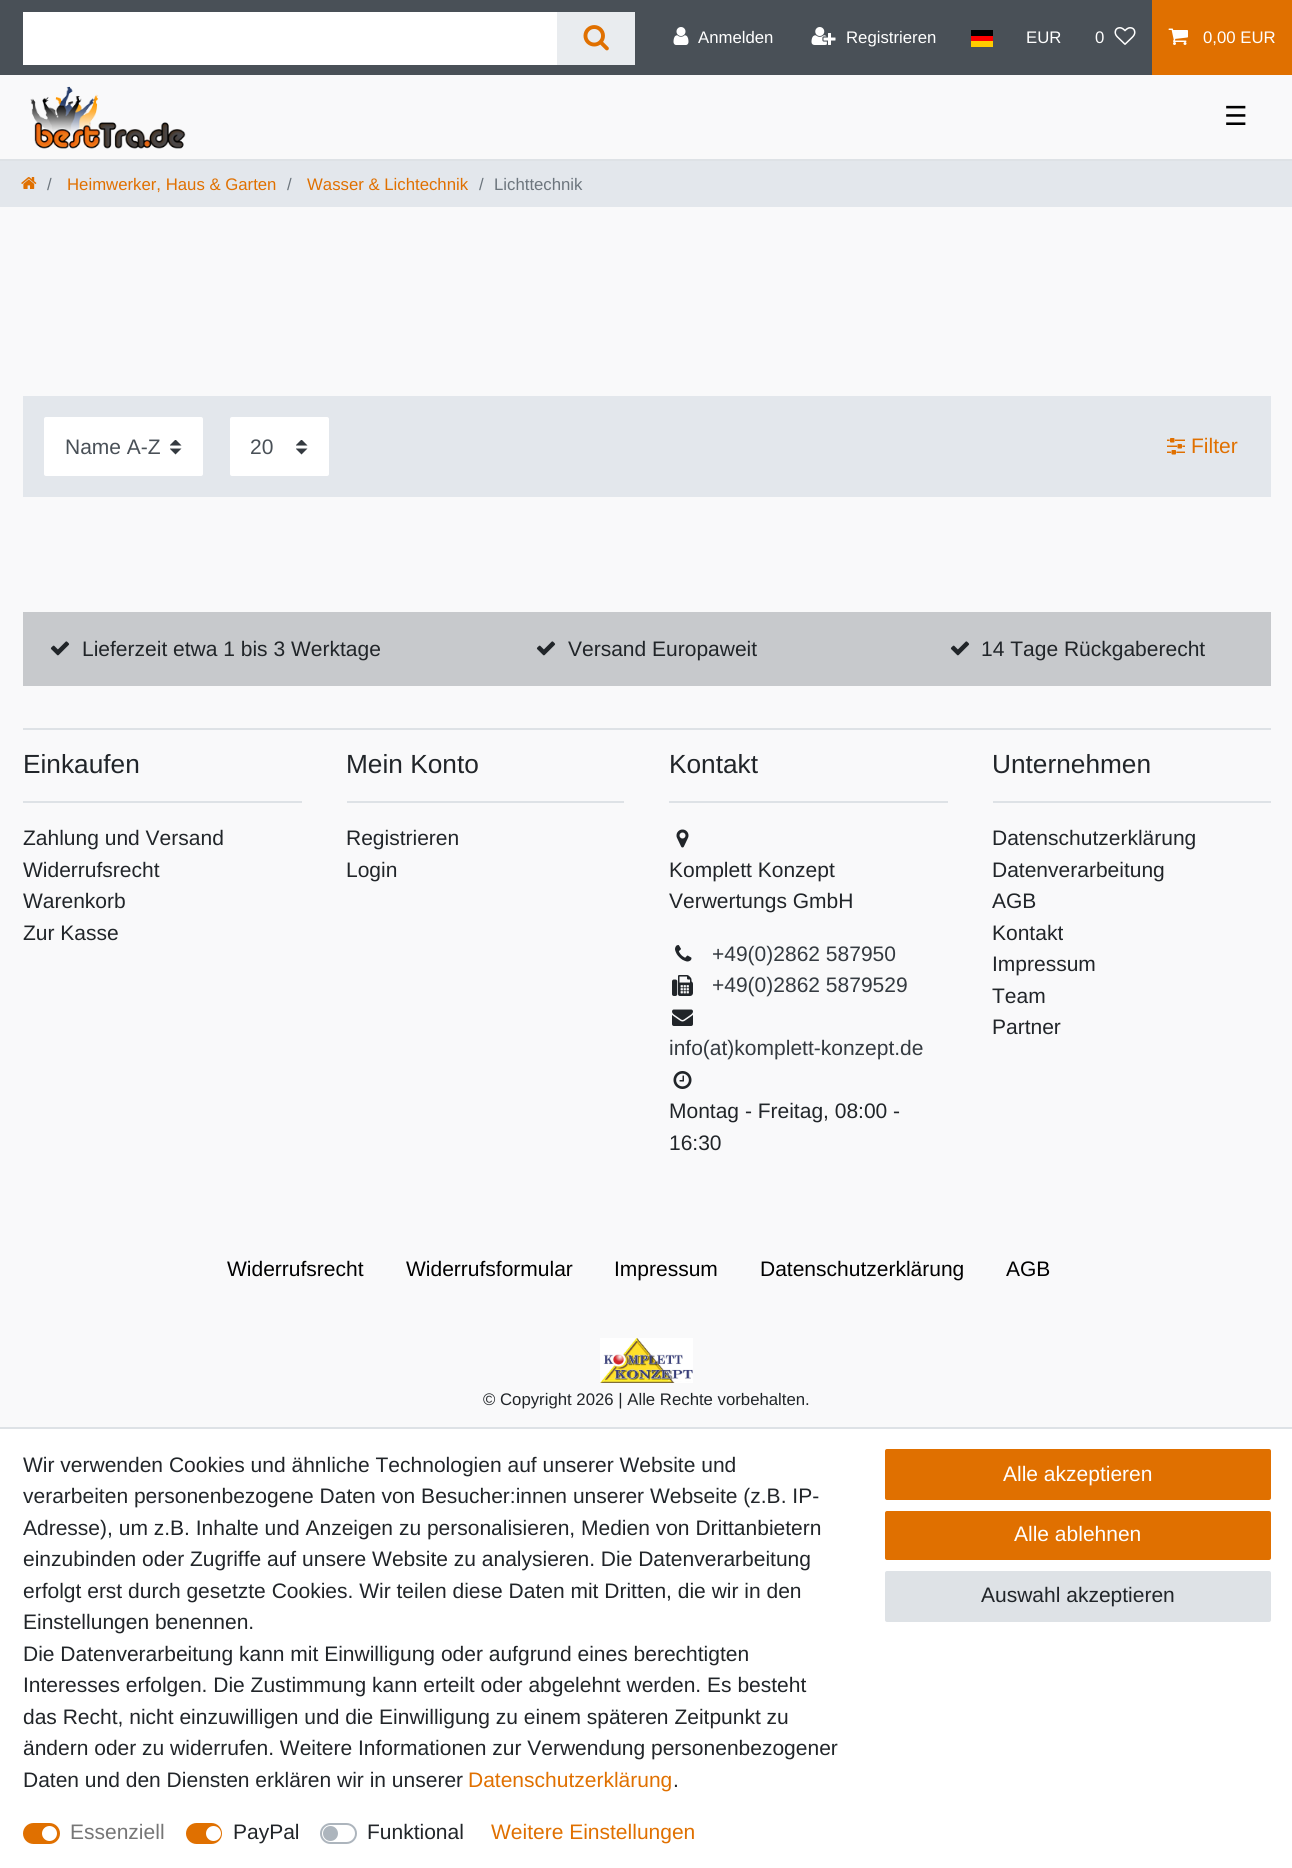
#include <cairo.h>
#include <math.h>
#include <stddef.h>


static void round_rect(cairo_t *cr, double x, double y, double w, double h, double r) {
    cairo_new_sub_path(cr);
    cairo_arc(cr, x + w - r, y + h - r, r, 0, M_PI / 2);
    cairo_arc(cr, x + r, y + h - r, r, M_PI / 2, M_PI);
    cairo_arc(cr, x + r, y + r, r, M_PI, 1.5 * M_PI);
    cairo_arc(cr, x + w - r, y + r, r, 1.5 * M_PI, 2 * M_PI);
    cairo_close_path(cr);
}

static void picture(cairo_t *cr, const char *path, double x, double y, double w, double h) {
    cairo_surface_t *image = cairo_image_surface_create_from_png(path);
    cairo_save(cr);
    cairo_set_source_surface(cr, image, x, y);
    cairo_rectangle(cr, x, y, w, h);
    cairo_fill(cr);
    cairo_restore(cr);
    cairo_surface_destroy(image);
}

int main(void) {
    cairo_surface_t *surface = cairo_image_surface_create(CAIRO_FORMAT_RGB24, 1292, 1868);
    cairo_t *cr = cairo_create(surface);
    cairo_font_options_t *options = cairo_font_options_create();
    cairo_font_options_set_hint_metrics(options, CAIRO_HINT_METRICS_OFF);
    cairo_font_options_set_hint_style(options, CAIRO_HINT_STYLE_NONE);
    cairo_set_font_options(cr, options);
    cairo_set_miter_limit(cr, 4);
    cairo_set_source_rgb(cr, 0.973, 0.976, 0.98);
    cairo_paint(cr);
    cairo_set_source_rgb(cr, 0.286, 0.314, 0.341);
    cairo_rectangle(cr, 0, 0, 1152, 75);
    cairo_fill(cr);
    cairo_set_source_rgb(cr, 1, 1, 1);
    cairo_rectangle(cr, 23, 12, 534, 53);
    cairo_fill(cr);
    cairo_set_source_rgb(cr, 0.914, 0.925, 0.937);
    cairo_rectangle(cr, 557, 12, 78, 53);
    cairo_fill(cr);
    picture(cr, "img1.png", 583, 25, 26, 26);
    picture(cr, "img2.png", 673, 27, 16, 18);
    cairo_select_font_face(cr, "Liberation Sans", CAIRO_FONT_SLANT_NORMAL, CAIRO_FONT_WEIGHT_NORMAL);
    cairo_set_font_size(cr, 16.75);
    cairo_set_source_rgb(cr, 1, 1, 1);
    cairo_move_to(cr, 698, 43);
    cairo_show_text(cr, "Anmelden");
    picture(cr, "img3.png", 811, 27, 25, 18);
    cairo_move_to(cr, 846, 43);
    cairo_show_text(cr, "Registrieren");
    cairo_set_source_rgb(cr, 1, 0.8, 0);
    cairo_rectangle(cr, 971, 41, 22, 6);
    cairo_fill(cr);
    cairo_set_source_rgb(cr, 0, 0, 0);
    cairo_rectangle(cr, 971, 30, 22, 6);
    cairo_fill(cr);
    cairo_set_source_rgb(cr, 1, 0, 0);
    cairo_rectangle(cr, 971, 36, 22, 5);
    cairo_fill(cr);
    cairo_set_source_rgb(cr, 1, 1, 1);
    cairo_move_to(cr, 1026, 43);
    cairo_show_text(cr, "EUR");
    cairo_move_to(cr, 1095, 43);
    cairo_show_text(cr, "0");
    picture(cr, "img4.png", 1114, 27, 22, 18);
    cairo_set_source_rgb(cr, 0.878, 0.439, 0);
    cairo_rectangle(cr, 1152, 0, 140, 75);
    cairo_fill(cr);
    picture(cr, "img5.png", 1168, 28, 20, 17);
    cairo_set_source_rgb(cr, 1, 1, 1);
    cairo_move_to(cr, 1203, 43);
    cairo_show_text(cr, "0,00 EUR");
    cairo_set_source_rgb(cr, 0.871, 0.886, 0.902);
    cairo_rectangle(cr, 0, 159, 1292, 2);
    cairo_fill(cr);
    picture(cr, "img6.png", 30, 86, 156, 63);
    cairo_select_font_face(cr, "DejaVu Sans", CAIRO_FONT_SLANT_NORMAL, CAIRO_FONT_WEIGHT_NORMAL);
    cairo_set_font_size(cr, 26.25);
    cairo_set_source_rgb(cr, 0, 0, 0);
    cairo_move_to(cr, 1224, 125);
    cairo_show_text(cr, "☰");
    cairo_set_source_rgb(cr, 0.89, 0.906, 0.922);
    cairo_rectangle(cr, 0, 161, 1292, 46);
    cairo_fill(cr);
    picture(cr, "img7.png", 21, 177, 16, 12);
    cairo_select_font_face(cr, "Liberation Sans", CAIRO_FONT_SLANT_NORMAL, CAIRO_FONT_WEIGHT_NORMAL);
    cairo_set_font_size(cr, 16.75);
    cairo_set_source_rgb(cr, 0.424, 0.459, 0.49);
    cairo_move_to(cr, 47, 190);
    cairo_show_text(cr, "/");
    cairo_set_source_rgb(cr, 0.878, 0.439, 0);
    cairo_move_to(cr, 67, 190);
    cairo_show_text(cr, "Heimwerker, Haus & Garten");
    cairo_set_source_rgb(cr, 0.424, 0.459, 0.49);
    cairo_move_to(cr, 287, 190);
    cairo_show_text(cr, "/");
    cairo_set_source_rgb(cr, 0.878, 0.439, 0);
    cairo_move_to(cr, 307, 190);
    cairo_show_text(cr, "Wasser & Lichtechnik");
    cairo_set_source_rgb(cr, 0.424, 0.459, 0.49);
    cairo_move_to(cr, 479, 190);
    cairo_show_text(cr, "/");
    cairo_move_to(cr, 494, 190);
    cairo_show_text(cr, "Lichttechnik");
    cairo_set_source_rgb(cr, 0.89, 0.906, 0.922);
    cairo_rectangle(cr, 23, 396, 1248, 101);
    cairo_fill(cr);
    cairo_set_source_rgb(cr, 1, 1, 1);
    round_rect(cr, 44, 417, 159, 59, 2);
    cairo_fill(cr);
    picture(cr, "img8.png", 170, 440, 12, 15);
    cairo_set_font_size(cr, 21);
    cairo_set_source_rgb(cr, 0.286, 0.314, 0.341);
    cairo_move_to(cr, 65, 454);
    cairo_show_text(cr, "Name A-Z");
    cairo_set_source_rgb(cr, 1, 1, 1);
    round_rect(cr, 230, 417, 99, 59, 2);
    cairo_fill(cr);
    picture(cr, "img8.png", 296, 440, 12, 15);
    cairo_set_source_rgb(cr, 0.286, 0.314, 0.341);
    cairo_move_to(cr, 250, 454);
    cairo_show_text(cr, "20");
    picture(cr, "img9.png", 1167, 438, 18, 17);
    cairo_set_source_rgb(cr, 0.878, 0.439, 0);
    cairo_move_to(cr, 1191, 453);
    cairo_show_text(cr, "Filter");
    cairo_set_source_rgb(cr, 0.78, 0.788, 0.8);
    cairo_rectangle(cr, 23, 612, 1248, 74);
    cairo_fill(cr);
    picture(cr, "img10.png", 50, 641, 20, 15);
    cairo_set_source_rgb(cr, 0.129, 0.145, 0.161);
    cairo_move_to(cr, 82, 656);
    cairo_show_text(cr, "Lieferzeit etwa 1 bis 3 Werktage");
    picture(cr, "img10.png", 536, 641, 20, 15);
    cairo_move_to(cr, 568, 656);
    cairo_show_text(cr, "Versand Europaweit");
    picture(cr, "img10.png", 950, 641, 20, 15);
    cairo_move_to(cr, 981, 656);
    cairo_show_text(cr, "14 Tage Rückgaberecht");
    cairo_set_source_rgb(cr, 0.871, 0.886, 0.902);
    cairo_rectangle(cr, 23, 728, 1248, 2);
    cairo_fill(cr);
    cairo_set_font_size(cr, 26.25);
    cairo_set_source_rgb(cr, 0.129, 0.145, 0.161);
    cairo_move_to(cr, 23, 773);
    cairo_show_text(cr, "Einkaufen");
    cairo_set_source_rgb(cr, 0.871, 0.886, 0.902);
    cairo_rectangle(cr, 23, 801, 279, 2);
    cairo_fill(cr);
    cairo_set_font_size(cr, 21);
    cairo_set_source_rgb(cr, 0.129, 0.145, 0.161);
    cairo_move_to(cr, 23, 845);
    cairo_show_text(cr, "Zahlung und Versand");
    cairo_move_to(cr, 23, 877);
    cairo_show_text(cr, "Widerrufsrecht");
    cairo_move_to(cr, 23, 908);
    cairo_show_text(cr, "Warenkorb");
    cairo_move_to(cr, 23, 940);
    cairo_show_text(cr, "Zur Kasse");
    cairo_set_font_size(cr, 26.25);
    cairo_move_to(cr, 346, 773);
    cairo_show_text(cr, "Mein Konto");
    cairo_set_source_rgb(cr, 0.871, 0.886, 0.902);
    cairo_rectangle(cr, 347, 801, 277, 2);
    cairo_fill(cr);
    cairo_set_font_size(cr, 21);
    cairo_set_source_rgb(cr, 0.129, 0.145, 0.161);
    cairo_move_to(cr, 346, 845);
    cairo_show_text(cr, "Registrieren");
    cairo_move_to(cr, 346, 877);
    cairo_show_text(cr, "Login");
    cairo_set_font_size(cr, 26.25);
    cairo_move_to(cr, 669, 773);
    cairo_show_text(cr, "Kontakt");
    cairo_set_source_rgb(cr, 0.871, 0.886, 0.902);
    cairo_rectangle(cr, 669, 801, 279, 2);
    cairo_fill(cr);
    picture(cr, "img11.png", 676, 829, 13, 19);
    cairo_set_font_size(cr, 21);
    cairo_set_source_rgb(cr, 0.129, 0.145, 0.161);
    cairo_move_to(cr, 669, 877);
    cairo_show_text(cr, "Komplett Konzept");
    cairo_move_to(cr, 669, 908);
    cairo_show_text(cr, "Verwertungs GmbH");
    picture(cr, "img12.png", 675, 945, 17, 17);
    cairo_set_source_rgb(cr, 0.204, 0.227, 0.251);
    cairo_move_to(cr, 712, 961);
    cairo_show_text(cr, "+49(0)2862 587950");
    picture(cr, "img13.png", 672, 975, 21, 21);
    cairo_move_to(cr, 712, 992);
    cairo_show_text(cr, "+49(0)2862 5879529");
    picture(cr, "img14.png", 672, 1009, 21, 17);
    cairo_move_to(cr, 669, 1055);
    cairo_show_text(cr, "info(at)komplett-konzept.de");
    picture(cr, "img15.png", 673, 1071, 19, 18);
    cairo_set_source_rgb(cr, 0.129, 0.145, 0.161);
    cairo_move_to(cr, 669, 1118);
    cairo_show_text(cr, "Montag - Freitag, 08:00 -");
    cairo_move_to(cr, 669, 1150);
    cairo_show_text(cr, "16:30");
    cairo_set_font_size(cr, 26.25);
    cairo_move_to(cr, 992, 773);
    cairo_show_text(cr, "Unternehmen");
    cairo_set_source_rgb(cr, 0.871, 0.886, 0.902);
    cairo_rectangle(cr, 993, 801, 278, 2);
    cairo_fill(cr);
    cairo_set_font_size(cr, 21);
    cairo_set_source_rgb(cr, 0.129, 0.145, 0.161);
    cairo_move_to(cr, 992, 845);
    cairo_show_text(cr, "Datenschutzerklärung");
    cairo_move_to(cr, 992, 877);
    cairo_show_text(cr, "Datenverarbeitung");
    cairo_move_to(cr, 992, 908);
    cairo_show_text(cr, "AGB");
    cairo_move_to(cr, 992, 940);
    cairo_show_text(cr, "Kontakt");
    cairo_move_to(cr, 992, 971);
    cairo_show_text(cr, "Impressum");
    cairo_move_to(cr, 992, 1003);
    cairo_show_text(cr, "Team");
    cairo_move_to(cr, 992, 1034);
    cairo_show_text(cr, "Partner");
    cairo_set_source_rgb(cr, 0, 0, 0);
    cairo_move_to(cr, 227, 1276);
    cairo_show_text(cr, "Widerrufsrecht");
    cairo_move_to(cr, 406, 1276);
    cairo_show_text(cr, "Widerrufsformular");
    cairo_move_to(cr, 614, 1276);
    cairo_show_text(cr, "Impressum");
    cairo_move_to(cr, 760, 1276);
    cairo_show_text(cr, "Datenschutzerklärung");
    cairo_move_to(cr, 1006, 1276);
    cairo_show_text(cr, "AGB");
    picture(cr, "img16.png", 600, 1338, 93, 45);
    cairo_set_font_size(cr, 16.75);
    cairo_set_source_rgb(cr, 0.129, 0.145, 0.161);
    cairo_move_to(cr, 483, 1405);
    cairo_show_text(cr, "© Copyright 2026 | Alle Rechte vorbehalten.");
    cairo_set_source_rgb(cr, 1, 1, 1);
    cairo_rectangle(cr, 0, 1429, 1292, 439);
    cairo_fill(cr);
    cairo_set_source_rgb(cr, 0.871, 0.886, 0.902);
    cairo_rectangle(cr, 0, 1427, 1292, 2);
    cairo_fill(cr);
    cairo_set_font_size(cr, 21);
    cairo_set_source_rgb(cr, 0.129, 0.145, 0.161);
    cairo_move_to(cr, 23, 1472);
    cairo_show_text(cr, "Wir verwenden Cookies und ähnliche Technologien auf unserer Website und");
    cairo_move_to(cr, 23, 1503);
    cairo_show_text(cr, "verarbeiten personenbezogene Daten von Besucher:innen unserer Webseite (z.B. IP-");
    cairo_move_to(cr, 23, 1535);
    cairo_show_text(cr, "Adresse), um z.B. Inhalte und Anzeigen zu personalisieren, Medien von Drittanbietern");
    cairo_move_to(cr, 23, 1566);
    cairo_show_text(cr, "einzubinden oder Zugriffe auf unsere Website zu analysieren. Die Datenverarbeitung");
    cairo_move_to(cr, 23, 1598);
    cairo_show_text(cr, "erfolgt erst durch gesetzte Cookies. Wir teilen diese Daten mit Dritten, die wir in den");
    cairo_move_to(cr, 23, 1629);
    cairo_show_text(cr, "Einstellungen benennen.");
    cairo_move_to(cr, 23, 1661);
    cairo_show_text(cr, "Die Datenverarbeitung kann mit Einwilligung oder aufgrund eines berechtigten");
    cairo_move_to(cr, 23, 1692);
    cairo_show_text(cr, "Interesses erfolgen. Die Zustimmung kann erteilt oder abgelehnt werden. Es besteht");
    cairo_move_to(cr, 23, 1724);
    cairo_show_text(cr, "das Recht, nicht einzuwilligen und die Einwilligung zu einem späteren Zeitpunkt zu");
    cairo_move_to(cr, 23, 1755);
    cairo_show_text(cr, "ändern oder zu widerrufen. Weitere Informationen zur Verwendung personenbezogener");
    cairo_move_to(cr, 23, 1787);
    cairo_show_text(cr, "Daten und den Diensten erklären wir in unserer");
    cairo_set_source_rgb(cr, 0.878, 0.439, 0);
    cairo_move_to(cr, 468, 1787);
    cairo_show_text(cr, "Datenschutzerklärung");
    cairo_set_source_rgb(cr, 0.129, 0.145, 0.161);
    cairo_move_to(cr, 673, 1787);
    cairo_show_text(cr, ".");
    cairo_set_source_rgb(cr, 0.878, 0.439, 0);
    round_rect(cr, 24, 1824, 35, 19, 9.5);
    cairo_fill_preserve(cr);
    cairo_stroke(cr);
    cairo_set_source_rgb(cr, 0.463, 0.463, 0.463);
    cairo_move_to(cr, 70, 1839);
    cairo_show_text(cr, "Essenziell");
    cairo_set_source_rgb(cr, 1, 1, 1);
    cairo_new_path(cr);
    cairo_arc(cr, 49.5, 1833.5, 7.5, 0, 2 * M_PI);
    cairo_fill(cr);
    cairo_set_source_rgb(cr, 0.878, 0.439, 0);
    round_rect(cr, 187, 1824, 34, 19, 9.5);
    cairo_fill_preserve(cr);
    cairo_stroke(cr);
    cairo_set_source_rgb(cr, 0.129, 0.145, 0.161);
    cairo_move_to(cr, 233, 1839);
    cairo_show_text(cr, "PayPal");
    cairo_set_source_rgb(cr, 1, 1, 1);
    cairo_new_path(cr);
    cairo_arc(cr, 213.5, 1833.5, 7.5, 0, 2 * M_PI);
    cairo_fill(cr);
    round_rect(cr, 321, 1824, 35, 19, 9.5);
    cairo_set_source_rgb(cr, 0.678, 0.71, 0.741);
    cairo_stroke(cr);
    cairo_set_source_rgb(cr, 0.129, 0.145, 0.161);
    cairo_move_to(cr, 367, 1839);
    cairo_show_text(cr, "Funktional");
    cairo_set_source_rgb(cr, 0.678, 0.71, 0.741);
    cairo_new_path(cr);
    cairo_arc(cr, 330.5, 1833.5, 7.5, 0, 2 * M_PI);
    cairo_fill(cr);
    cairo_set_source_rgb(cr, 0.878, 0.439, 0);
    cairo_move_to(cr, 491, 1839);
    cairo_show_text(cr, "Weitere Einstellungen");
    round_rect(cr, 886, 1450, 384, 49, 1);
    cairo_fill_preserve(cr);
    cairo_stroke(cr);
    cairo_set_source_rgb(cr, 1, 1, 1);
    cairo_move_to(cr, 1003, 1481);
    cairo_show_text(cr, "Alle akzeptieren");
    cairo_set_source_rgb(cr, 0.878, 0.439, 0);
    round_rect(cr, 886, 1512, 384, 47, 1);
    cairo_fill_preserve(cr);
    cairo_stroke(cr);
    cairo_set_source_rgb(cr, 1, 1, 1);
    cairo_move_to(cr, 1014, 1541);
    cairo_show_text(cr, "Alle ablehnen");
    cairo_set_source_rgb(cr, 0.871, 0.886, 0.902);
    round_rect(cr, 886, 1572, 384, 49, 1);
    cairo_fill_preserve(cr);
    cairo_stroke(cr);
    cairo_set_source_rgb(cr, 0.129, 0.145, 0.161);
    cairo_move_to(cr, 981, 1602);
    cairo_show_text(cr, "Auswahl akzeptieren");
    cairo_surface_write_to_png(surface, "page.png");
    cairo_font_options_destroy(options);
    cairo_destroy(cr);
    cairo_surface_destroy(surface);
    return 0;
}
